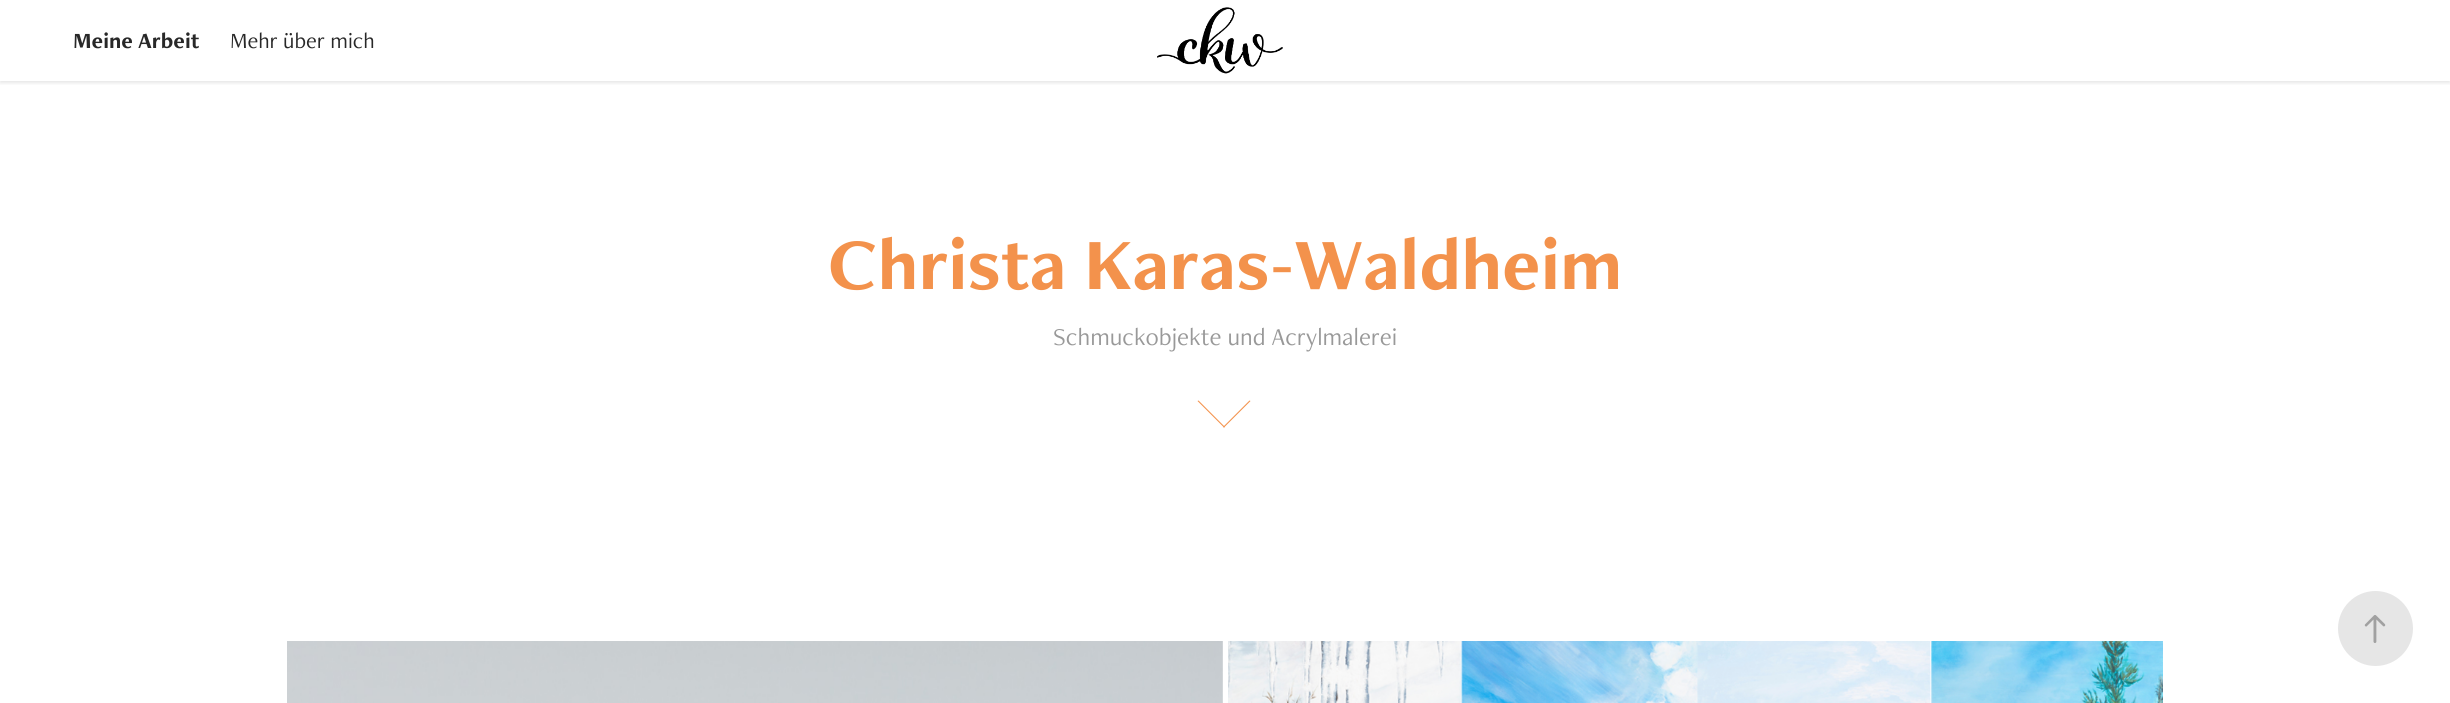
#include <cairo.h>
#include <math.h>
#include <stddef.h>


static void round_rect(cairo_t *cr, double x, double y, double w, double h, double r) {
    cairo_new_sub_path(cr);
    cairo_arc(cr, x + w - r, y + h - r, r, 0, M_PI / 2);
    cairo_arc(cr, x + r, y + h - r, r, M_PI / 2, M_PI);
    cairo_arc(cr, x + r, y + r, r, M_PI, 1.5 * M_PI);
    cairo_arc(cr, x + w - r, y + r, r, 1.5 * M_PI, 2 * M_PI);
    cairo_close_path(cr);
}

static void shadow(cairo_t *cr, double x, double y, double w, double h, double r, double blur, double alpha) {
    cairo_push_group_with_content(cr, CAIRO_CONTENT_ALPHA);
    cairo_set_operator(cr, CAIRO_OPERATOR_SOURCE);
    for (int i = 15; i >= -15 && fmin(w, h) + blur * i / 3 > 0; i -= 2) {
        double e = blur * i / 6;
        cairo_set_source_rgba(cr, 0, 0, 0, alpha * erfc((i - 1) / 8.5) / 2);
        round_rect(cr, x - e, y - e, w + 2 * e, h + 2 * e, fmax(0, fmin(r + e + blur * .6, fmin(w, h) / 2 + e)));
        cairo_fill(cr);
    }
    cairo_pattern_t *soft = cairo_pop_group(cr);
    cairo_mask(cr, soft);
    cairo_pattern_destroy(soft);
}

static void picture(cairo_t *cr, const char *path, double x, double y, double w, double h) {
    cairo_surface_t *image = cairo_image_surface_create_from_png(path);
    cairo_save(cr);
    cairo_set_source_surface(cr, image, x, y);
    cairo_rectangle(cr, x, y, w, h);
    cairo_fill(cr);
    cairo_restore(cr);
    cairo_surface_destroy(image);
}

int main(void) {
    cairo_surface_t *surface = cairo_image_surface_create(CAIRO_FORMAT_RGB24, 2450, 703);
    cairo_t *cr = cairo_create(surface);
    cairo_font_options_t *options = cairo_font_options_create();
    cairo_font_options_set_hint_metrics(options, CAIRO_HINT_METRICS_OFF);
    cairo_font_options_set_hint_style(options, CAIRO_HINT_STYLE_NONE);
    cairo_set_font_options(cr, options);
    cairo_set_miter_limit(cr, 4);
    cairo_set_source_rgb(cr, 1, 1, 1);
    cairo_paint(cr);
    cairo_save(cr);
    cairo_rectangle(cr, 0, 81, 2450, 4);
    cairo_clip(cr);
    cairo_set_source_rgb(cr, 0, 0, 0);
    shadow(cr, 0, 1, 2450, 82, 0, 2, 0.1);
    cairo_restore(cr);
    cairo_select_font_face(cr, "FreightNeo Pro", CAIRO_FONT_SLANT_NORMAL, CAIRO_FONT_WEIGHT_BOLD);
    cairo_set_font_size(cr, 22.5);
    cairo_set_source_rgb(cr, 0.157, 0.157, 0.157);
    cairo_move_to(cr, 73, 48);
    cairo_show_text(cr, "Meine Arbeit");
    cairo_select_font_face(cr, "FreightNeo Pro", CAIRO_FONT_SLANT_NORMAL, CAIRO_FONT_WEIGHT_NORMAL);
    cairo_move_to(cr, 230, 48);
    cairo_show_text(cr, "Mehr über mich");
    picture(cr, "img1.png", 1157, 7, 126, 67);
    cairo_select_font_face(cr, "FreightNeo Pro", CAIRO_FONT_SLANT_NORMAL, CAIRO_FONT_WEIGHT_BOLD);
    cairo_set_font_size(cr, 75);
    cairo_set_source_rgb(cr, 0.953, 0.573, 0.298);
    cairo_move_to(cr, 828, 289);
    cairo_show_text(cr, "Christa Karas-Waldheim");
    cairo_select_font_face(cr, "FreightNeo Pro", CAIRO_FONT_SLANT_NORMAL, CAIRO_FONT_WEIGHT_NORMAL);
    cairo_set_font_size(cr, 25);
    cairo_set_source_rgb(cr, 0.6, 0.6, 0.6);
    cairo_move_to(cr, 1053, 345);
    cairo_show_text(cr, "Schmuckobjekte und Acrylmalerei");
    cairo_set_source_rgb(cr, 0.953, 0.573, 0.298);
    cairo_new_path(cr);
    cairo_move_to(cr, 1249.5, 400.5);
    cairo_line_to(cr, 1250.5, 401);
    cairo_line_to(cr, 1224, 427.5);
    cairo_line_to(cr, 1223, 427);
    cairo_close_path(cr);
    cairo_fill(cr);
    cairo_new_path(cr);
    cairo_move_to(cr, 1198.5, 400.5);
    cairo_line_to(cr, 1225, 427);
    cairo_line_to(cr, 1224, 427.5);
    cairo_line_to(cr, 1197.5, 401);
    cairo_close_path(cr);
    cairo_fill(cr);
    picture(cr, "img2.png", 287, 641, 936, 62);
    picture(cr, "img3.png", 1228, 641, 935, 62);
    cairo_set_source_rgb(cr, 0.902, 0.902, 0.902);
    cairo_arc(cr, 2375.5, 628.5, 37.5, 0, 2 * M_PI);
    cairo_fill(cr);
    picture(cr, "img4.png", 2364, 615, 22, 28);
    cairo_surface_write_to_png(surface, "page.png");
    cairo_font_options_destroy(options);
    cairo_destroy(cr);
    cairo_surface_destroy(surface);
    return 0;
}
